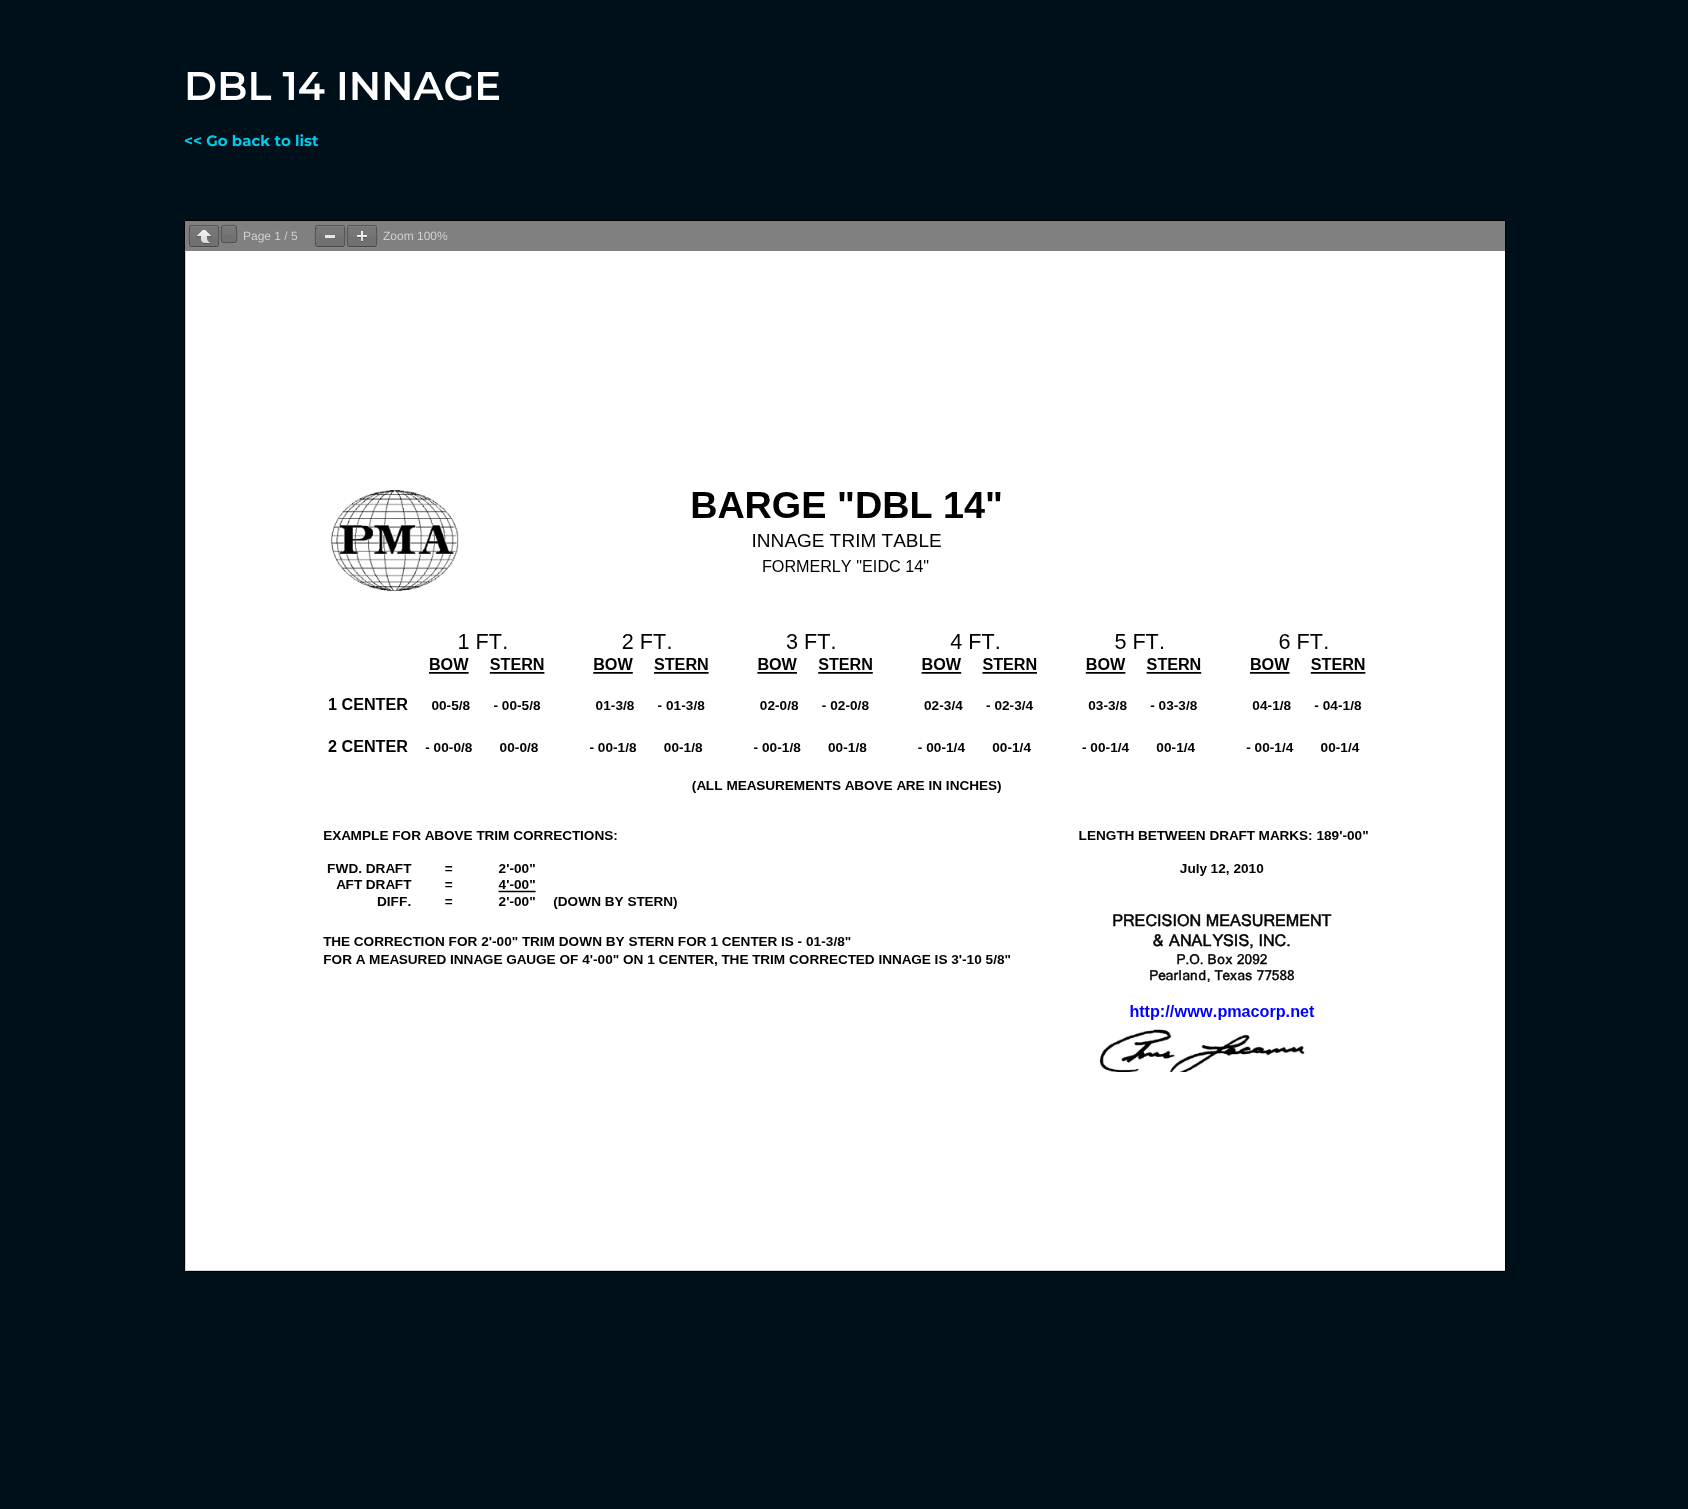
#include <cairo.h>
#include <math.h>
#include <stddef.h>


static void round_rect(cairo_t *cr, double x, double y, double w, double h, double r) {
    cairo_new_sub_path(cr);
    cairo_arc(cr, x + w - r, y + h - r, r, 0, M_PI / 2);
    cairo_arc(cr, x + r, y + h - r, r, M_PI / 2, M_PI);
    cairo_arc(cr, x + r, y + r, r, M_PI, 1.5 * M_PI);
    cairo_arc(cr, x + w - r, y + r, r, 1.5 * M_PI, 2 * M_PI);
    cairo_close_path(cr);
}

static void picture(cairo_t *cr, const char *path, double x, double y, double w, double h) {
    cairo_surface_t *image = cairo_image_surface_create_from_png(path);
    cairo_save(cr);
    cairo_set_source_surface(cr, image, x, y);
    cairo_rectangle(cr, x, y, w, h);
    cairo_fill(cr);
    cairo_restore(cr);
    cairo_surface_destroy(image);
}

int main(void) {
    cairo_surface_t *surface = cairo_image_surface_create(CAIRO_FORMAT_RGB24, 1688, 1509);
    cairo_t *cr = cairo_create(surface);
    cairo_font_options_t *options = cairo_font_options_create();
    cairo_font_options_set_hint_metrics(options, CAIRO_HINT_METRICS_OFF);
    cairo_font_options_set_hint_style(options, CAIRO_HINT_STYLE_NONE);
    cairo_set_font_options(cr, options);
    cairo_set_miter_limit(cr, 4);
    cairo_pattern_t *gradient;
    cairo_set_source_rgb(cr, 0, 0.063, 0.102);
    cairo_paint(cr);
    cairo_select_font_face(cr, "Montserrat SemiBold", CAIRO_FONT_SLANT_NORMAL, CAIRO_FONT_WEIGHT_NORMAL);
    cairo_set_font_size(cr, 40);
    cairo_set_source_rgb(cr, 1, 1, 1);
    cairo_move_to(cr, 184, 100);
    cairo_show_text(cr, "DBL 14 INNAGE");
    cairo_select_font_face(cr, "Montserrat", CAIRO_FONT_SLANT_NORMAL, CAIRO_FONT_WEIGHT_BOLD);
    cairo_set_font_size(cr, 15);
    cairo_set_source_rgb(cr, 0.004, 0.796, 0.925);
    cairo_move_to(cr, 184, 146);
    cairo_show_text(cr, "<< Go back to list");
    cairo_set_source_rgb(cr, 0.827, 0.827, 0.827);
    cairo_rectangle(cr, 185, 251, 1320, 1020);
    cairo_fill(cr);
    cairo_rectangle(cr, 184.5, 220.5, 1321, 1051);
    cairo_set_source_rgb(cr, 0, 0, 0);
    cairo_set_line_width(cr, 1);
    cairo_stroke(cr);
    cairo_set_source_rgb(cr, 0.502, 0.502, 0.502);
    cairo_rectangle(cr, 185, 221, 1320, 30);
    cairo_fill(cr);
    cairo_set_source_rgb(cr, 0.525, 0.525, 0.525);
    cairo_new_path(cr);
    cairo_move_to(cr, 189, 245);
    cairo_curve_to(cr, 189, 249, 191.5, 248, 195.5, 248);
    cairo_line_to(cr, 212.5, 248);
    cairo_curve_to(cr, 216.5, 248, 219, 249, 219, 245);
    cairo_curve_to(cr, 219, 246, 218, 247, 217, 247);
    cairo_line_to(cr, 191, 247);
    cairo_curve_to(cr, 190, 247, 189, 246, 189, 245);
    cairo_close_path(cr);
    cairo_fill(cr);
    cairo_set_source_rgb(cr, 0.443, 0.443, 0.443);
    round_rect(cr, 190, 226, 28, 20, 1);
    cairo_fill(cr);
    gradient = cairo_pattern_create_linear(204, 226, 204, 246);
    cairo_pattern_add_color_stop_rgba(gradient, 0, 1, 1, 1, 0.05);
    cairo_pattern_add_color_stop_rgba(gradient, 1, 1, 1, 1, 0);
    cairo_set_source(cr, gradient);
    cairo_pattern_destroy(gradient);
    cairo_rectangle(cr, 190, 226, 28, 11);
    cairo_fill(cr);
    cairo_set_source_rgb(cr, 0.498, 0.498, 0.498);
    cairo_new_path(cr);
    cairo_move_to(cr, 191, 227);
    cairo_line_to(cr, 213, 227);
    cairo_curve_to(cr, 216, 227, 217.5, 227, 218, 227.5);
    cairo_curve_to(cr, 218, 225, 214.5, 226, 212.5, 226);
    cairo_line_to(cr, 195.5, 226);
    cairo_curve_to(cr, 191, 226, 190, 225, 190, 228.5);
    cairo_curve_to(cr, 190, 227.5, 190.5, 227, 191, 227);
    cairo_close_path(cr);
    cairo_fill(cr);
    cairo_new_path(cr);
    cairo_move_to(cr, 190, 226);
    cairo_line_to(cr, 191, 225.5);
    cairo_line_to(cr, 217, 225.5);
    cairo_line_to(cr, 218, 226);
    cairo_set_source_rgb(cr, 0.341, 0.341, 0.341);
    cairo_stroke(cr);
    cairo_new_path(cr);
    cairo_move_to(cr, 218, 226);
    cairo_curve_to(cr, 219, 226.5, 219, 245.5, 218, 246);
    cairo_set_source_rgb(cr, 0.31, 0.31, 0.31);
    cairo_stroke(cr);
    cairo_new_path(cr);
    cairo_move_to(cr, 218, 246);
    cairo_line_to(cr, 217, 246.5);
    cairo_line_to(cr, 191, 246.5);
    cairo_line_to(cr, 190, 246);
    cairo_set_source_rgb(cr, 0.29, 0.29, 0.29);
    cairo_stroke(cr);
    cairo_new_path(cr);
    cairo_move_to(cr, 190, 246);
    cairo_curve_to(cr, 189, 245.5, 189, 226.5, 190, 226);
    cairo_set_source_rgb(cr, 0.31, 0.31, 0.31);
    cairo_stroke(cr);
    picture(cr, "img1.png", 197, 230, 14, 14);
    cairo_set_source_rgb(cr, 0.525, 0.525, 0.525);
    cairo_new_path(cr);
    cairo_move_to(cr, 221, 241);
    cairo_curve_to(cr, 221, 244, 222, 244, 225, 244);
    cairo_line_to(cr, 233, 244);
    cairo_curve_to(cr, 236, 244, 237, 244, 237, 241);
    cairo_curve_to(cr, 237, 242, 236, 243, 235, 243);
    cairo_line_to(cr, 223, 243);
    cairo_curve_to(cr, 222, 243, 221, 242, 221, 241);
    cairo_close_path(cr);
    cairo_fill(cr);
    cairo_set_source_rgb(cr, 0.443, 0.443, 0.443);
    round_rect(cr, 222, 226, 14, 16, 1);
    cairo_fill(cr);
    gradient = cairo_pattern_create_linear(229, 226, 229, 242);
    cairo_pattern_add_color_stop_rgba(gradient, 0, 1, 1, 1, 0.05);
    cairo_pattern_add_color_stop_rgba(gradient, 1, 1, 1, 1, 0);
    cairo_set_source(cr, gradient);
    cairo_pattern_destroy(gradient);
    cairo_rectangle(cr, 222, 226, 14, 9);
    cairo_fill(cr);
    cairo_set_source_rgb(cr, 0.498, 0.498, 0.498);
    cairo_new_path(cr);
    cairo_move_to(cr, 223, 226);
    cairo_curve_to(cr, 222.5, 226, 222, 226.5, 222, 227);
    cairo_line_to(cr, 236, 227);
    cairo_curve_to(cr, 236, 226.5, 235.5, 226, 235, 226);
    cairo_close_path(cr);
    cairo_fill(cr);
    cairo_new_path(cr);
    cairo_move_to(cr, 222, 226);
    cairo_curve_to(cr, 223, 225, 235, 225, 236, 226);
    cairo_set_source_rgb(cr, 0.341, 0.341, 0.341);
    cairo_stroke(cr);
    cairo_new_path(cr);
    cairo_move_to(cr, 236, 226);
    cairo_curve_to(cr, 237, 227, 237, 241, 236, 242);
    cairo_set_source_rgb(cr, 0.31, 0.31, 0.31);
    cairo_stroke(cr);
    cairo_new_path(cr);
    cairo_move_to(cr, 236, 242);
    cairo_curve_to(cr, 235, 243, 223, 243, 222, 242);
    cairo_set_source_rgb(cr, 0.29, 0.29, 0.29);
    cairo_stroke(cr);
    cairo_new_path(cr);
    cairo_move_to(cr, 222, 242);
    cairo_curve_to(cr, 221, 241, 221, 227, 222, 226);
    cairo_set_source_rgb(cr, 0.31, 0.31, 0.31);
    cairo_stroke(cr);
    cairo_select_font_face(cr, "Liberation Sans", CAIRO_FONT_SLANT_NORMAL, CAIRO_FONT_WEIGHT_NORMAL);
    cairo_set_font_size(cr, 12);
    cairo_set_source_rgb(cr, 0.827, 0.827, 0.827);
    cairo_move_to(cr, 243, 240);
    cairo_show_text(cr, "Page 1 / 5");
    cairo_set_source_rgb(cr, 0.525, 0.525, 0.525);
    cairo_new_path(cr);
    cairo_move_to(cr, 315, 245);
    cairo_curve_to(cr, 315, 249, 317.5, 248, 321.5, 248);
    cairo_line_to(cr, 338.5, 248);
    cairo_curve_to(cr, 342.5, 248, 345, 249, 345, 245);
    cairo_curve_to(cr, 345, 246, 344, 247, 343, 247);
    cairo_line_to(cr, 317, 247);
    cairo_curve_to(cr, 316, 247, 315, 246, 315, 245);
    cairo_close_path(cr);
    cairo_fill(cr);
    cairo_set_source_rgb(cr, 0.443, 0.443, 0.443);
    round_rect(cr, 316, 226, 28, 20, 1);
    cairo_fill(cr);
    gradient = cairo_pattern_create_linear(330, 226, 330, 246);
    cairo_pattern_add_color_stop_rgba(gradient, 0, 1, 1, 1, 0.05);
    cairo_pattern_add_color_stop_rgba(gradient, 1, 1, 1, 1, 0);
    cairo_set_source(cr, gradient);
    cairo_pattern_destroy(gradient);
    cairo_rectangle(cr, 316, 226, 28, 11);
    cairo_fill(cr);
    cairo_set_source_rgb(cr, 0.498, 0.498, 0.498);
    cairo_new_path(cr);
    cairo_move_to(cr, 317, 227);
    cairo_line_to(cr, 339, 227);
    cairo_curve_to(cr, 342, 227, 343.5, 227, 344, 227.5);
    cairo_curve_to(cr, 344, 225, 340.5, 226, 338.5, 226);
    cairo_line_to(cr, 321.5, 226);
    cairo_curve_to(cr, 317, 226, 316, 225, 316, 228.5);
    cairo_curve_to(cr, 316, 227.5, 316.5, 227, 317, 227);
    cairo_close_path(cr);
    cairo_fill(cr);
    cairo_new_path(cr);
    cairo_move_to(cr, 316, 226);
    cairo_line_to(cr, 317, 225.5);
    cairo_line_to(cr, 343, 225.5);
    cairo_line_to(cr, 344, 226);
    cairo_set_source_rgb(cr, 0.341, 0.341, 0.341);
    cairo_stroke(cr);
    cairo_new_path(cr);
    cairo_move_to(cr, 344, 226);
    cairo_curve_to(cr, 345, 226.5, 345, 245.5, 344, 246);
    cairo_set_source_rgb(cr, 0.31, 0.31, 0.31);
    cairo_stroke(cr);
    cairo_new_path(cr);
    cairo_move_to(cr, 344, 246);
    cairo_line_to(cr, 343, 246.5);
    cairo_line_to(cr, 317, 246.5);
    cairo_line_to(cr, 316, 246);
    cairo_set_source_rgb(cr, 0.29, 0.29, 0.29);
    cairo_stroke(cr);
    cairo_new_path(cr);
    cairo_move_to(cr, 316, 246);
    cairo_curve_to(cr, 315, 245.5, 315, 226.5, 316, 226);
    cairo_set_source_rgb(cr, 0.31, 0.31, 0.31);
    cairo_stroke(cr);
    cairo_set_source_rgb(cr, 0.902, 0.902, 0.902);
    cairo_rectangle(cr, 325, 235, 10, 3);
    cairo_fill(cr);
    cairo_set_source_rgb(cr, 0.525, 0.525, 0.525);
    cairo_new_path(cr);
    cairo_move_to(cr, 347, 245);
    cairo_curve_to(cr, 347, 249, 349.5, 248, 353.5, 248);
    cairo_line_to(cr, 370.5, 248);
    cairo_curve_to(cr, 374.5, 248, 377, 249, 377, 245);
    cairo_curve_to(cr, 377, 246, 376, 247, 375, 247);
    cairo_line_to(cr, 349, 247);
    cairo_curve_to(cr, 348, 247, 347, 246, 347, 245);
    cairo_close_path(cr);
    cairo_fill(cr);
    cairo_set_source_rgb(cr, 0.443, 0.443, 0.443);
    round_rect(cr, 348, 226, 28, 20, 1);
    cairo_fill(cr);
    gradient = cairo_pattern_create_linear(362, 226, 362, 246);
    cairo_pattern_add_color_stop_rgba(gradient, 0, 1, 1, 1, 0.05);
    cairo_pattern_add_color_stop_rgba(gradient, 1, 1, 1, 1, 0);
    cairo_set_source(cr, gradient);
    cairo_pattern_destroy(gradient);
    cairo_rectangle(cr, 348, 226, 28, 11);
    cairo_fill(cr);
    cairo_set_source_rgb(cr, 0.498, 0.498, 0.498);
    cairo_new_path(cr);
    cairo_move_to(cr, 349, 227);
    cairo_line_to(cr, 371, 227);
    cairo_curve_to(cr, 374, 227, 375.5, 227, 376, 227.5);
    cairo_curve_to(cr, 376, 225, 372.5, 226, 370.5, 226);
    cairo_line_to(cr, 353.5, 226);
    cairo_curve_to(cr, 349, 226, 348, 225, 348, 228.5);
    cairo_curve_to(cr, 348, 227.5, 348.5, 227, 349, 227);
    cairo_close_path(cr);
    cairo_fill(cr);
    cairo_new_path(cr);
    cairo_move_to(cr, 348, 226);
    cairo_line_to(cr, 349, 225.5);
    cairo_line_to(cr, 375, 225.5);
    cairo_line_to(cr, 376, 226);
    cairo_set_source_rgb(cr, 0.341, 0.341, 0.341);
    cairo_stroke(cr);
    cairo_new_path(cr);
    cairo_move_to(cr, 376, 226);
    cairo_curve_to(cr, 377, 226.5, 377, 245.5, 376, 246);
    cairo_set_source_rgb(cr, 0.31, 0.31, 0.31);
    cairo_stroke(cr);
    cairo_new_path(cr);
    cairo_move_to(cr, 376, 246);
    cairo_line_to(cr, 375, 246.5);
    cairo_line_to(cr, 349, 246.5);
    cairo_line_to(cr, 348, 246);
    cairo_set_source_rgb(cr, 0.29, 0.29, 0.29);
    cairo_stroke(cr);
    cairo_new_path(cr);
    cairo_move_to(cr, 348, 246);
    cairo_curve_to(cr, 347, 245.5, 347, 226.5, 348, 226);
    cairo_set_source_rgb(cr, 0.31, 0.31, 0.31);
    cairo_stroke(cr);
    picture(cr, "img2.png", 357, 231, 10, 11);
    cairo_set_source_rgb(cr, 0.827, 0.827, 0.827);
    cairo_move_to(cr, 383, 240);
    cairo_show_text(cr, "Zoom 100%");
    cairo_set_source_rgb(cr, 1, 1, 1);
    cairo_rectangle(cr, 186, 251, 1319, 1019);
    cairo_fill(cr);
    picture(cr, "img3.png", 323, 490, 1045, 582);
    cairo_surface_write_to_png(surface, "page.png");
    cairo_font_options_destroy(options);
    cairo_destroy(cr);
    cairo_surface_destroy(surface);
    return 0;
}
